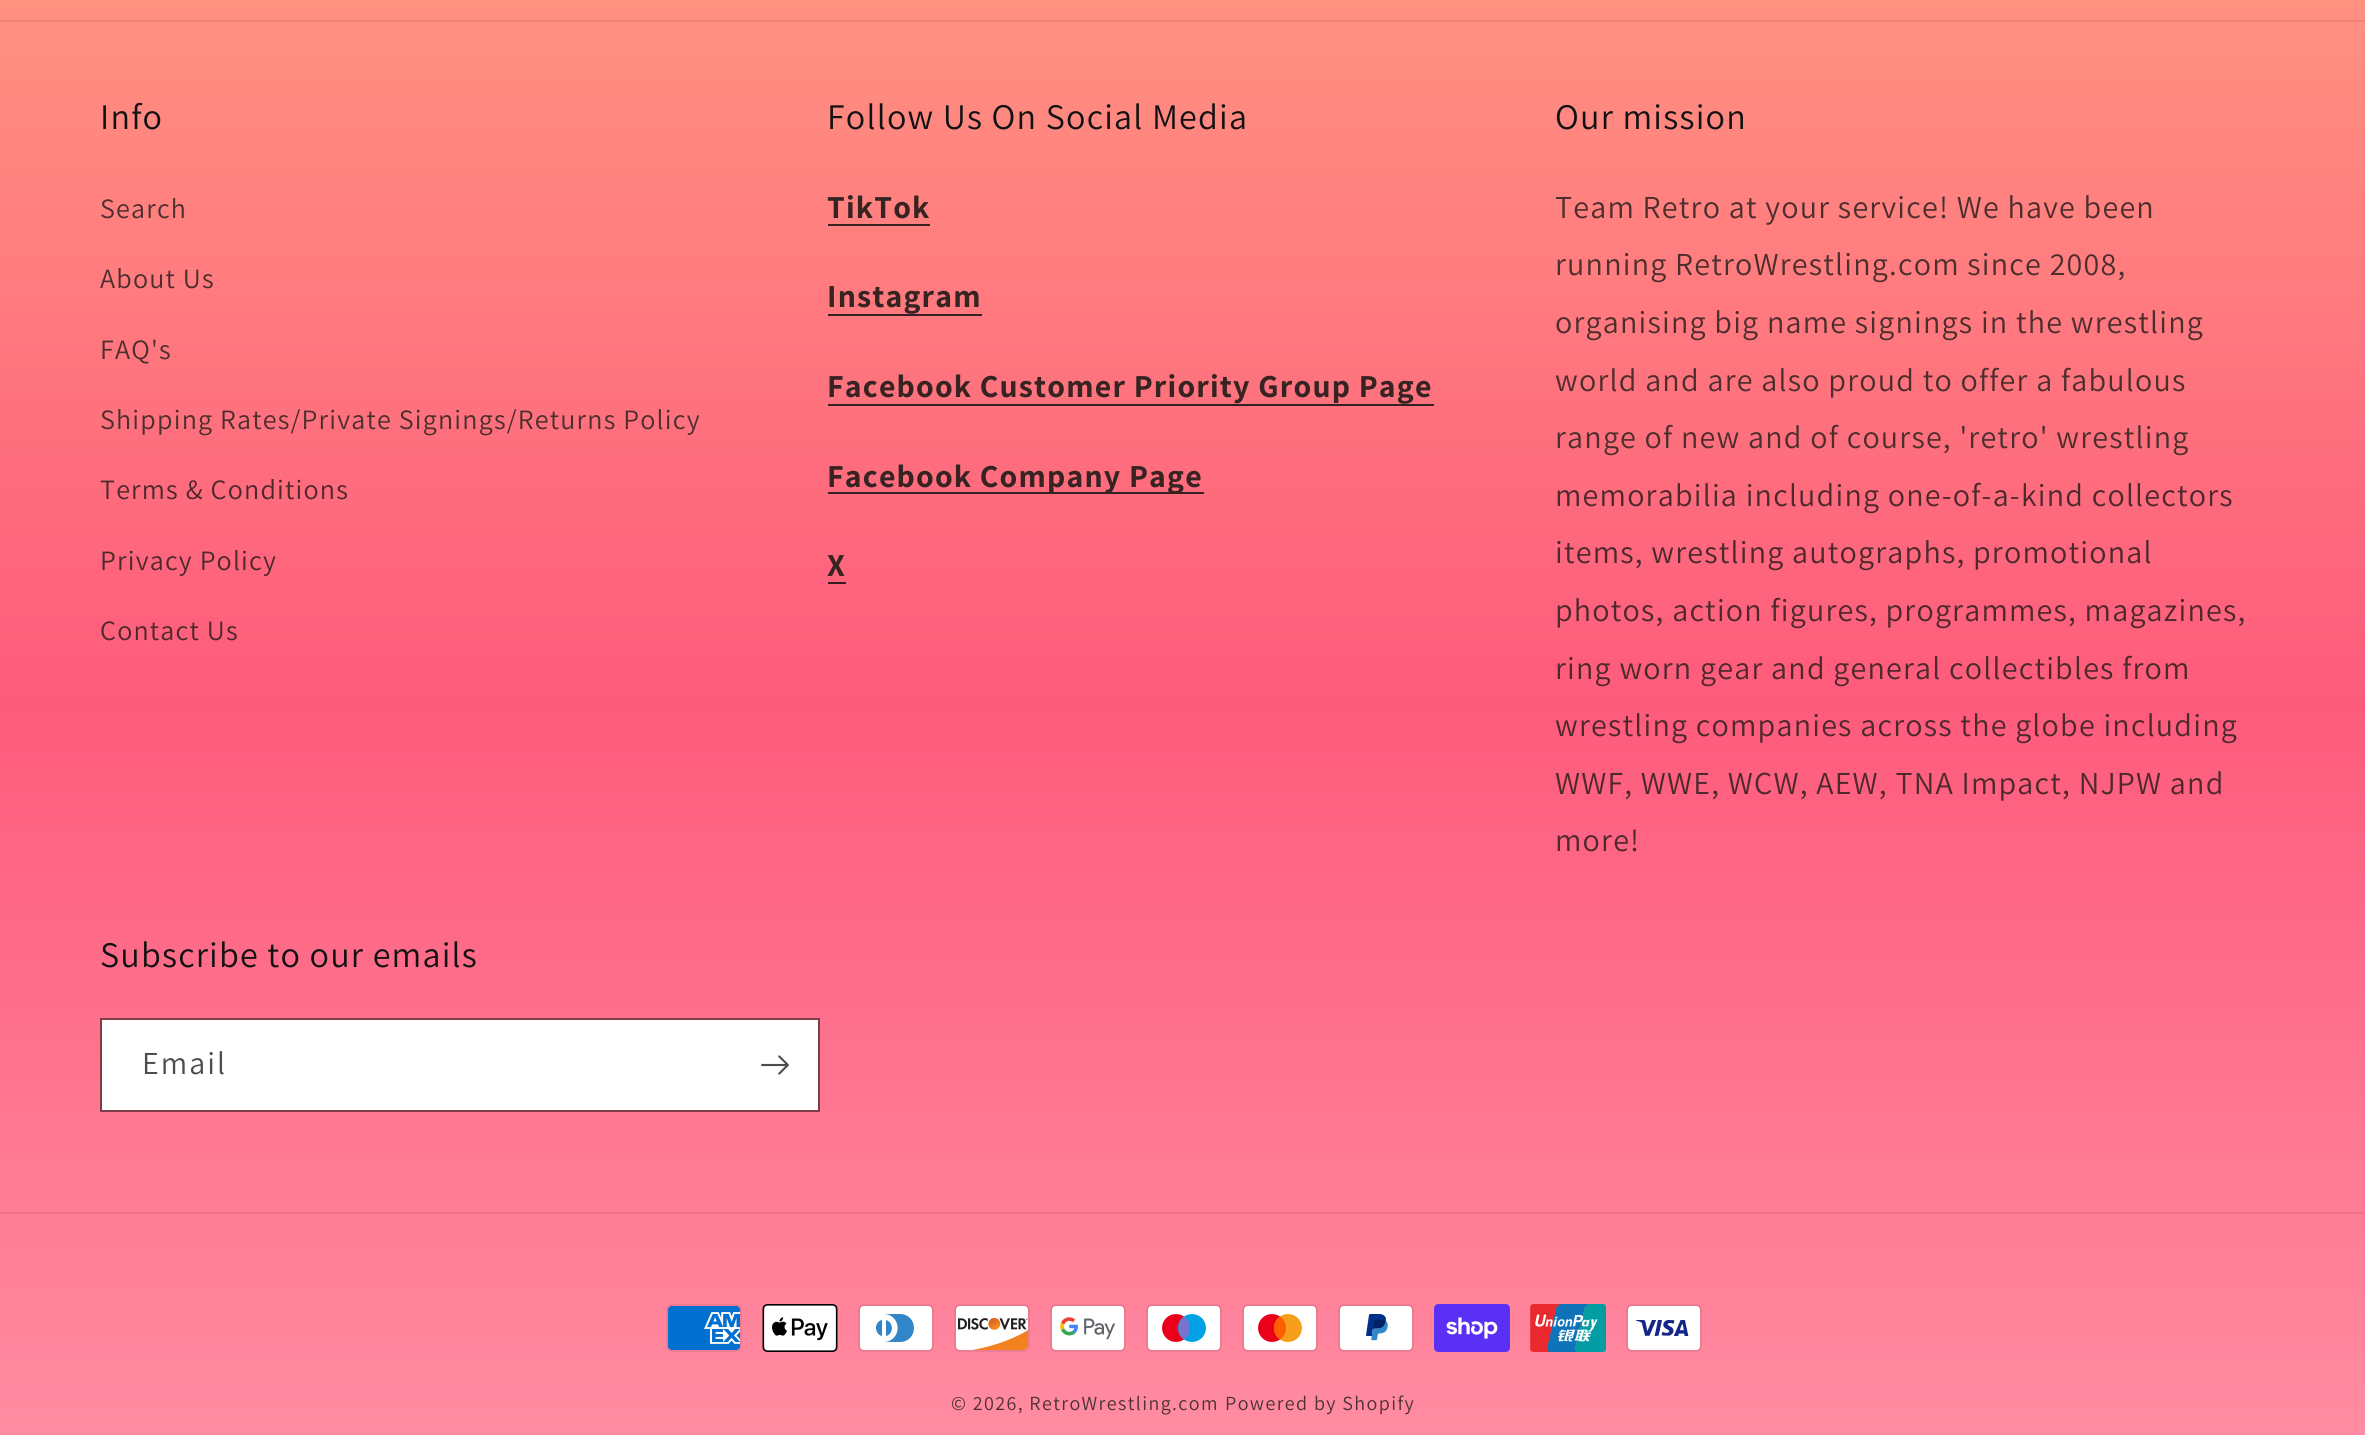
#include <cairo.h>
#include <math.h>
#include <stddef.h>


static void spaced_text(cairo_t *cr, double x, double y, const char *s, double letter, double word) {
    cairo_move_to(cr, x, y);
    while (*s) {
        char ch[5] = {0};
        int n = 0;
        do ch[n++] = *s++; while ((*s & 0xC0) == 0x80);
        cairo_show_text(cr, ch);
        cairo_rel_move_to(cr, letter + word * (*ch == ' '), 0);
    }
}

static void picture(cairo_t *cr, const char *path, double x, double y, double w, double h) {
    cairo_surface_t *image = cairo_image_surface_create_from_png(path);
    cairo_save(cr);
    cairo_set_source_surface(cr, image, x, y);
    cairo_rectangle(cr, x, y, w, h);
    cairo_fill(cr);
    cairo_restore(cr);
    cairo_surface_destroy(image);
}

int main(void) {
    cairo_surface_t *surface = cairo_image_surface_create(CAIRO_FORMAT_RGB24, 2365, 1435);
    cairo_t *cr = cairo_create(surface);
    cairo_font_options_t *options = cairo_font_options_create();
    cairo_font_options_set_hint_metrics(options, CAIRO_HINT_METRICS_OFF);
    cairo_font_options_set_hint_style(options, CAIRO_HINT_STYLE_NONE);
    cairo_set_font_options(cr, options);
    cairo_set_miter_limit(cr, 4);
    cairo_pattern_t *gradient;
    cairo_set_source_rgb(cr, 1, 1, 1);
    cairo_paint(cr);
    gradient = cairo_pattern_create_linear(1183, 0, 1183, 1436);
    cairo_pattern_add_color_stop_rgba(gradient, 0, 1, 0.569, 0.506, 1);
    cairo_pattern_add_color_stop_rgba(gradient, 0.49, 0.996, 0.357, 0.486, 1);
    cairo_pattern_add_color_stop_rgba(gradient, 1, 1, 0.549, 0.635, 1);
    cairo_set_source(cr, gradient);
    cairo_pattern_destroy(gradient);
    cairo_rectangle(cr, 0, 0, 2365, 1435);
    cairo_fill(cr);
    cairo_set_source_rgb(cr, 0.925, 0.522, 0.471);
    cairo_rectangle(cr, 0, 20, 2365, 2);
    cairo_fill(cr);
    cairo_select_font_face(cr, "Assistant", CAIRO_FONT_SLANT_NORMAL, CAIRO_FONT_WEIGHT_NORMAL);
    cairo_set_font_size(cr, 36);
    cairo_set_source_rgb(cr, 0.071, 0.071, 0.071);
    spaced_text(cr, 100, 129, "Info", 1.2, 0);
    cairo_set_font_size(cr, 28);
    cairo_set_source_rgb(cr, 0.302, 0.18, 0.176);
    spaced_text(cr, 100, 218, "Search", 1.2, 0);
    spaced_text(cr, 100, 288, "About Us", 1.2, 0);
    spaced_text(cr, 100, 359, "FAQ's", 1.2, 0);
    spaced_text(cr, 100, 429, "Shipping Rates/Private Signings/Returns Policy", 1.2, 0);
    cairo_set_source_rgb(cr, 0.302, 0.157, 0.176);
    spaced_text(cr, 100, 499, "Terms & Conditions", 1.2, 0);
    spaced_text(cr, 100, 570, "Privacy Policy", 1.2, 0);
    spaced_text(cr, 100, 640, "Contact Us", 1.2, 0);
    cairo_set_font_size(cr, 36);
    cairo_set_source_rgb(cr, 0.071, 0.071, 0.071);
    spaced_text(cr, 827, 129, "Follow Us On Social Media", 1.2, 0);
    cairo_select_font_face(cr, "Assistant", CAIRO_FONT_SLANT_NORMAL, CAIRO_FONT_WEIGHT_BOLD);
    cairo_set_font_size(cr, 32);
    cairo_set_source_rgb(cr, 0.212, 0.137, 0.133);
    spaced_text(cr, 827, 218, "TikTok", 1.2, 0);
    cairo_rectangle(cr, 828, 224, 102, 2);
    cairo_fill(cr);
    spaced_text(cr, 827, 307, "Instagram", 1.2, 0);
    cairo_set_source_rgb(cr, 0.212, 0.129, 0.133);
    cairo_rectangle(cr, 828, 314, 154, 2);
    cairo_fill(cr);
    cairo_set_source_rgb(cr, 0.212, 0.137, 0.133);
    spaced_text(cr, 827, 397, "Facebook Customer Priority Group Page", 1.2, 0);
    cairo_set_source_rgb(cr, 0.208, 0.125, 0.133);
    cairo_rectangle(cr, 828, 404, 606, 2);
    cairo_fill(cr);
    cairo_set_source_rgb(cr, 0.208, 0.122, 0.133);
    cairo_rectangle(cr, 828, 492, 376, 2);
    cairo_fill(cr);
    cairo_set_source_rgb(cr, 0.212, 0.137, 0.133);
    spaced_text(cr, 827, 487, "Facebook Company Page", 1.2, 0);
    spaced_text(cr, 827, 576, "X", 1.2, 0);
    cairo_set_source_rgb(cr, 0.208, 0.118, 0.133);
    cairo_rectangle(cr, 828, 582, 18, 2);
    cairo_fill(cr);
    cairo_select_font_face(cr, "Assistant", CAIRO_FONT_SLANT_NORMAL, CAIRO_FONT_WEIGHT_NORMAL);
    cairo_set_font_size(cr, 36);
    cairo_set_source_rgb(cr, 0.071, 0.071, 0.071);
    spaced_text(cr, 1555, 129, "Our mission", 1.2, 0);
    cairo_set_font_size(cr, 32);
    cairo_set_source_rgb(cr, 0.302, 0.18, 0.176);
    spaced_text(cr, 1555, 218, "Team Retro at your service! We have been", 1.2, 0);
    spaced_text(cr, 1555, 275, "running RetroWrestling.com since 2008,", 1.2, 0);
    spaced_text(cr, 1555, 333, "organising big name signings in the wrestling", 1.2, 0);
    spaced_text(cr, 1555, 391, "world and are also proud to offer a fabulous", 1.2, 0);
    spaced_text(cr, 1555, 448, "range of new and of course, 'retro' wrestling", 1.2, 0);
    cairo_set_source_rgb(cr, 0.302, 0.157, 0.176);
    spaced_text(cr, 1555, 506, "memorabilia including one-of-a-kind collectors", 1.2, 0);
    spaced_text(cr, 1555, 563, "items, wrestling autographs, promotional", 1.2, 0);
    spaced_text(cr, 1555, 621, "photos, action figures, programmes, magazines,", 1.2, 0);
    spaced_text(cr, 1555, 679, "ring worn gear and general collectibles from", 1.2, 0);
    spaced_text(cr, 1555, 736, "wrestling companies across the globe including", 1.2, 0);
    spaced_text(cr, 1555, 794, "WWF, WWE, WCW, AEW, TNA Impact, NJPW and", 1.2, 0);
    spaced_text(cr, 1555, 851, "more!", 1.2, 0);
    cairo_set_font_size(cr, 36);
    cairo_set_source_rgb(cr, 0.071, 0.071, 0.071);
    spaced_text(cr, 100, 967, "Subscribe to our emails", 1.2, 0);
    cairo_set_source_rgb(cr, 1, 1, 1);
    cairo_rectangle(cr, 102, 1020, 716, 90);
    cairo_fill(cr);
    cairo_rectangle(cr, 101, 1019, 718, 92);
    cairo_set_source_rgba(cr, 0.071, 0.071, 0.071, 0.55);
    cairo_stroke(cr);
    cairo_set_font_size(cr, 32);
    cairo_set_source_rgb(cr, 0.302, 0.302, 0.302);
    spaced_text(cr, 142, 1074, "Email", 2, 0);
    picture(cr, "img1.png", 761, 1055, 28, 20);
    cairo_set_source_rgb(cr, 0.925, 0.455, 0.545);
    cairo_rectangle(cr, 0, 1212, 2365, 2);
    cairo_fill(cr);
    picture(cr, "img2.png", 666, 1304, 76, 48);
    picture(cr, "img3.png", 762, 1304, 76, 48);
    picture(cr, "img4.png", 858, 1304, 76, 48);
    picture(cr, "img5.png", 954, 1304, 76, 48);
    picture(cr, "img6.png", 1050, 1304, 76, 48);
    picture(cr, "img7.png", 1146, 1304, 76, 48);
    picture(cr, "img8.png", 1242, 1304, 76, 48);
    picture(cr, "img9.png", 1338, 1304, 76, 48);
    picture(cr, "img10.png", 1434, 1304, 76, 48);
    picture(cr, "img11.png", 1530, 1304, 76, 48);
    picture(cr, "img12.png", 1626, 1304, 76, 48);
    cairo_set_font_size(cr, 20);
    cairo_set_source_rgb(cr, 0.302, 0.188, 0.212);
    spaced_text(cr, 951, 1410, "© 2026, RetroWrestling.com", 1.4, 0);
    spaced_text(cr, 1225, 1410, "Powered by Shopify", 1.4, 0);
    cairo_surface_write_to_png(surface, "page.png");
    cairo_font_options_destroy(options);
    cairo_destroy(cr);
    cairo_surface_destroy(surface);
    return 0;
}
